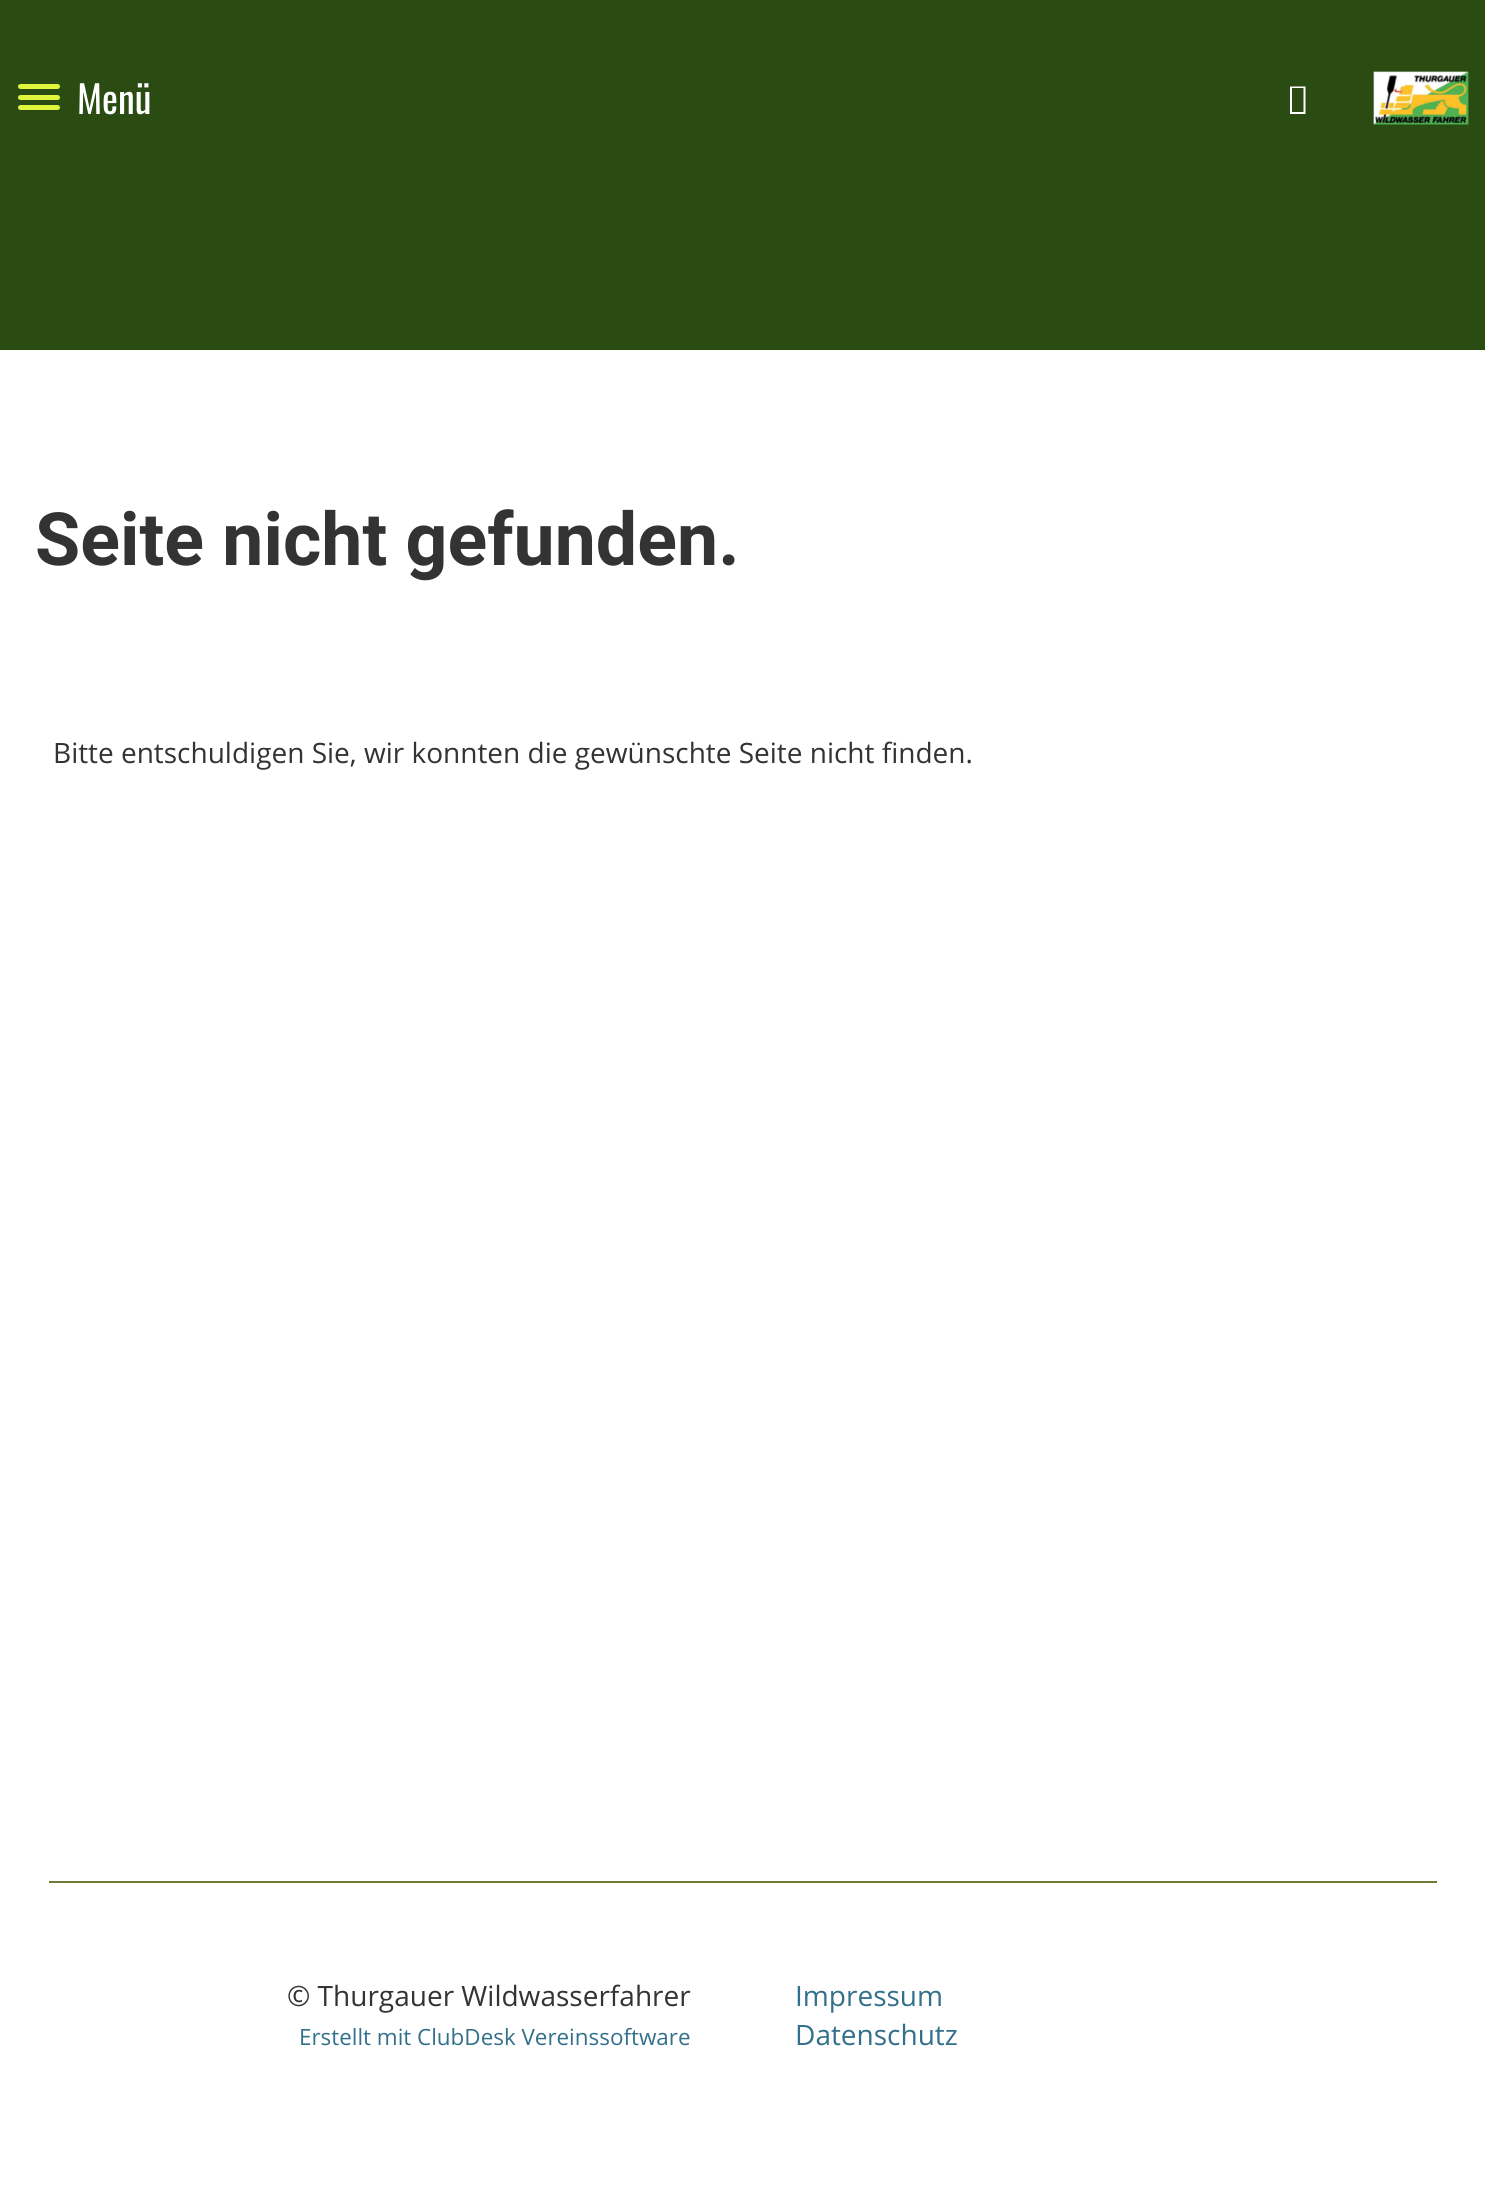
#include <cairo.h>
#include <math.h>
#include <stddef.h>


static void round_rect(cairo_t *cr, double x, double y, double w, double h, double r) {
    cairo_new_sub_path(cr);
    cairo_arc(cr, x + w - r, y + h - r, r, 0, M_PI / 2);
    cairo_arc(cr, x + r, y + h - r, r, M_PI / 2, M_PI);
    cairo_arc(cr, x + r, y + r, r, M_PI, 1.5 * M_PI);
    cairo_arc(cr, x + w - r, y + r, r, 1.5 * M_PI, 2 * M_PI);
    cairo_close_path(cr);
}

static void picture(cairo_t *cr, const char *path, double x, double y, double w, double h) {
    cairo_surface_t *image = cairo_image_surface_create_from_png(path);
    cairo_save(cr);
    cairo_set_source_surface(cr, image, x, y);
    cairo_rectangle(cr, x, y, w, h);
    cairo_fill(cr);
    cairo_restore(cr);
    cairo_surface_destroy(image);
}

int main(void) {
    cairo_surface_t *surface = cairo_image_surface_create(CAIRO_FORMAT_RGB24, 1485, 2185);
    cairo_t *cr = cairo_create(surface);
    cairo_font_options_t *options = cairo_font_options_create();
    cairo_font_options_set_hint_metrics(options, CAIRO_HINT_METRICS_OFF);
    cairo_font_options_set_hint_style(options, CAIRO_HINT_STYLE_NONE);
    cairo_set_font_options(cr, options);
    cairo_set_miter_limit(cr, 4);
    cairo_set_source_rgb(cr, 1, 1, 1);
    cairo_paint(cr);
    cairo_set_source_rgb(cr, 0.165, 0.294, 0.067);
    cairo_rectangle(cr, 0, 0, 1485, 350);
    cairo_fill(cr);
    cairo_set_source_rgb(cr, 0.875, 0.961, 0.239);
    round_rect(cr, 18, 84, 42, 5, 2.5);
    cairo_fill(cr);
    round_rect(cr, 18, 95, 42, 5, 2.5);
    cairo_fill(cr);
    round_rect(cr, 18, 105, 42, 5, 2.5);
    cairo_fill(cr);
    cairo_select_font_face(cr, "Oswald", CAIRO_FONT_SLANT_NORMAL, CAIRO_FONT_WEIGHT_NORMAL);
    cairo_set_font_size(cr, 38);
    cairo_set_source_rgb(cr, 1, 1, 1);
    cairo_move_to(cr, 77, 114);
    cairo_show_text(cr, "Menü");
    cairo_new_path(cr);
    cairo_move_to(cr, 1290, 114);
    cairo_line_to(cr, 1290, 86.5);
    cairo_line_to(cr, 1305.5, 86.5);
    cairo_line_to(cr, 1305.5, 114);
    cairo_close_path(cr);
    cairo_move_to(cr, 1292, 112);
    cairo_line_to(cr, 1303.5, 112);
    cairo_line_to(cr, 1303.5, 88);
    cairo_line_to(cr, 1292, 88);
    cairo_close_path(cr);
    cairo_fill(cr);
    picture(cr, "img1.png", 1373, 71, 96, 54);
    cairo_select_font_face(cr, "Roboto", CAIRO_FONT_SLANT_NORMAL, CAIRO_FONT_WEIGHT_BOLD);
    cairo_set_font_size(cr, 73.5);
    cairo_set_source_rgb(cr, 0.2, 0.2, 0.2);
    cairo_move_to(cr, 35, 565);
    cairo_show_text(cr, "Seite nicht gefunden.");
    cairo_select_font_face(cr, "Open Sans", CAIRO_FONT_SLANT_NORMAL, CAIRO_FONT_WEIGHT_NORMAL);
    cairo_set_font_size(cr, 28);
    cairo_move_to(cr, 53, 763);
    cairo_show_text(cr, "Bitte entschuldigen Sie, wir konnten die gewünschte Seite nicht finden.");
    cairo_set_source_rgb(cr, 0.439, 0.478, 0.208);
    cairo_rectangle(cr, 49, 1881, 1388, 2);
    cairo_fill(cr);
    cairo_set_source_rgb(cr, 0.2, 0.2, 0.2);
    cairo_move_to(cr, 287, 2006);
    cairo_show_text(cr, "© Thurgauer Wildwasserfahrer");
    cairo_set_font_size(cr, 22.4);
    cairo_set_source_rgb(cr, 0.2, 0.439, 0.549);
    cairo_move_to(cr, 299, 2045);
    cairo_show_text(cr, "Erstellt mit ClubDesk Vereinssoftware");
    cairo_set_font_size(cr, 28);
    cairo_move_to(cr, 795, 2006);
    cairo_show_text(cr, "Impressum");
    cairo_move_to(cr, 795, 2045);
    cairo_show_text(cr, "Datenschutz");
    cairo_surface_write_to_png(surface, "page.png");
    cairo_font_options_destroy(options);
    cairo_destroy(cr);
    cairo_surface_destroy(surface);
    return 0;
}
